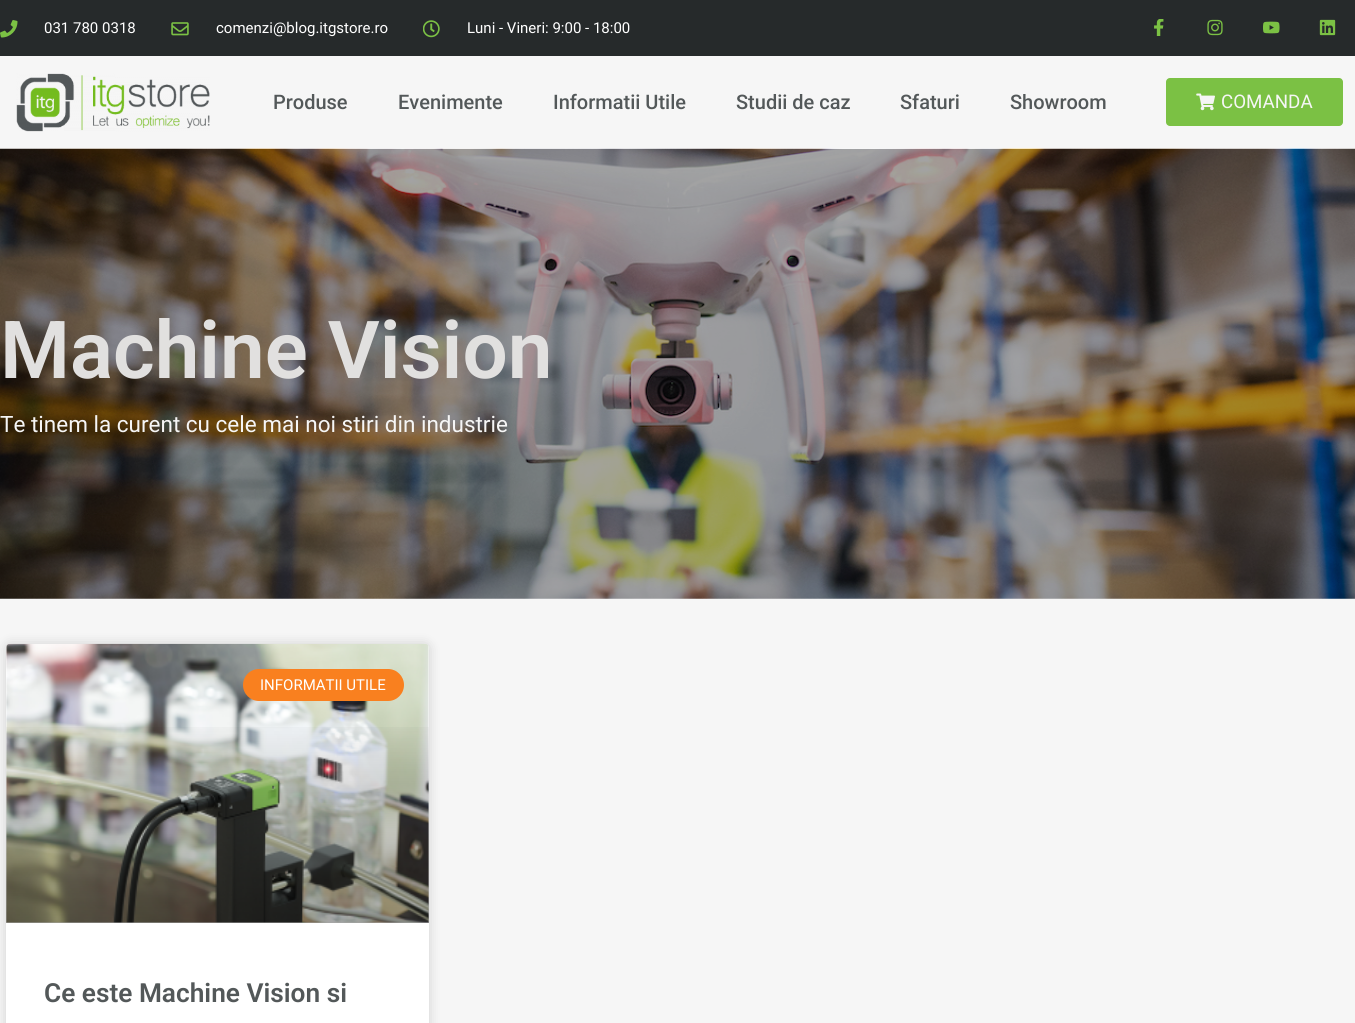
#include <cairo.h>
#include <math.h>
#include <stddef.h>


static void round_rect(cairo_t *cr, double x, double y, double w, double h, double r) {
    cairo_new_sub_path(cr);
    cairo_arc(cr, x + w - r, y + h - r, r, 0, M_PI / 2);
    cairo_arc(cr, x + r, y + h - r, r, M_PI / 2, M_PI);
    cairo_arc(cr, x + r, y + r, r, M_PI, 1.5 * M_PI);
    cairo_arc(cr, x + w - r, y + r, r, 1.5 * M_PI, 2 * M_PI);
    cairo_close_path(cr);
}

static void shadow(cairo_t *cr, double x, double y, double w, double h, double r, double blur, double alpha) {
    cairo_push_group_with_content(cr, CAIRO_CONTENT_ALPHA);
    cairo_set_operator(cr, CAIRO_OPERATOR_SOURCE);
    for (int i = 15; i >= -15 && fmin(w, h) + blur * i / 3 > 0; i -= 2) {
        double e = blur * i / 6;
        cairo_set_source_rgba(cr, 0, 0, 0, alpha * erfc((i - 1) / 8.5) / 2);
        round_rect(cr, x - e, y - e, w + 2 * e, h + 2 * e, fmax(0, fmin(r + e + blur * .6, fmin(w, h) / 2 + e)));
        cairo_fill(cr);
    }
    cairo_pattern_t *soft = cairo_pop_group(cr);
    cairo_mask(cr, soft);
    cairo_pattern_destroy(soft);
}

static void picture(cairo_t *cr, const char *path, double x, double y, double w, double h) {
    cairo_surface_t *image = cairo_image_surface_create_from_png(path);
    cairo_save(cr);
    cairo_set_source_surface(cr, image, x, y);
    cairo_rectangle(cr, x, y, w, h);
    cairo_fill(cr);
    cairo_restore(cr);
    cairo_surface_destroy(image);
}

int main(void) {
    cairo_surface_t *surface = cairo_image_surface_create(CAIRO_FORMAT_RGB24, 1355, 1023);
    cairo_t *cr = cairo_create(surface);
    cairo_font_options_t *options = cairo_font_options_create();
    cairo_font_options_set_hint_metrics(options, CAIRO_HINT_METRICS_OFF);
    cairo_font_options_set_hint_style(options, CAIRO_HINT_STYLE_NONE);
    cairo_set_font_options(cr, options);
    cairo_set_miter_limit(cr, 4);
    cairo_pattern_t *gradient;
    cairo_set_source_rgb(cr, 0.961, 0.961, 0.961);
    cairo_paint(cr);
    cairo_set_source_rgb(cr, 0.149, 0.165, 0.169);
    cairo_rectangle(cr, 0, 0, 1355, 56);
    cairo_fill(cr);
    picture(cr, "img1.png", 0, 20, 18, 18);
    cairo_select_font_face(cr, "Roboto", CAIRO_FONT_SLANT_NORMAL, CAIRO_FONT_WEIGHT_NORMAL);
    cairo_set_font_size(cr, 15);
    cairo_set_source_rgb(cr, 1, 1, 1);
    cairo_move_to(cr, 44, 33);
    cairo_show_text(cr, "031 780 0318");
    picture(cr, "img2.png", 171, 22, 18, 14);
    cairo_move_to(cr, 216, 33);
    cairo_show_text(cr, "comenzi@blog.itgstore.ro");
    picture(cr, "img3.png", 423, 20, 17, 18);
    cairo_move_to(cr, 467, 33);
    cairo_show_text(cr, "Luni - Vineri: 9:00 - 18:00");
    picture(cr, "img4.png", 1154, 19, 10, 17);
    picture(cr, "img5.png", 1207, 19, 16, 17);
    picture(cr, "img6.png", 1263, 21, 17, 13);
    picture(cr, "img7.png", 1319, 19, 17, 17);
    picture(cr, "img8.png", 16, 73, 194, 59);
    cairo_select_font_face(cr, "Roboto Medium", CAIRO_FONT_SLANT_NORMAL, CAIRO_FONT_WEIGHT_NORMAL);
    cairo_set_font_size(cr, 20);
    cairo_set_source_rgb(cr, 0.325, 0.345, 0.349);
    cairo_move_to(cr, 273, 109);
    cairo_show_text(cr, "Produse");
    cairo_move_to(cr, 398, 109);
    cairo_show_text(cr, "Evenimente");
    cairo_move_to(cr, 553, 109);
    cairo_show_text(cr, "Informatii Utile");
    cairo_move_to(cr, 736, 109);
    cairo_show_text(cr, "Studii de caz");
    cairo_move_to(cr, 900, 109);
    cairo_show_text(cr, "Sfaturi");
    cairo_move_to(cr, 1010, 109);
    cairo_show_text(cr, "Showroom");
    cairo_set_source_rgb(cr, 0.482, 0.757, 0.267);
    round_rect(cr, 1166, 78, 177, 48, 4);
    cairo_fill(cr);
    picture(cr, "img9.png", 1196, 93, 19, 18);
    cairo_select_font_face(cr, "Roboto", CAIRO_FONT_SLANT_NORMAL, CAIRO_FONT_WEIGHT_NORMAL);
    cairo_set_font_size(cr, 18.75);
    cairo_set_source_rgb(cr, 0.961, 0.961, 0.961);
    cairo_move_to(cr, 1221, 108);
    cairo_show_text(cr, "COMANDA");
    picture(cr, "img10.png", 0, 148, 1355, 451);
    cairo_select_font_face(cr, "Roboto SemiBold", CAIRO_FONT_SLANT_NORMAL, CAIRO_FONT_WEIGHT_NORMAL);
    cairo_set_font_size(cr, 80);
    cairo_set_source_rgb(cr, 0.882, 0.878, 0.875);
    cairo_move_to(cr, 0, 378);
    cairo_show_text(cr, "Machine Vision");
    cairo_select_font_face(cr, "Roboto", CAIRO_FONT_SLANT_NORMAL, CAIRO_FONT_WEIGHT_NORMAL);
    cairo_set_font_size(cr, 22.5);
    cairo_set_source_rgb(cr, 0.961, 0.961, 0.961);
    cairo_move_to(cr, 0, 432);
    cairo_show_text(cr, "Te tinem la curent cu cele mai noi stiri din industrie");
    cairo_set_source_rgb(cr, 0, 0, 0);
    shadow(cr, 6, 644, 423, 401, 4, 6, 0.15);
    cairo_set_source_rgb(cr, 1, 1, 1);
    round_rect(cr, 6, 644, 423, 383, 4);
    cairo_fill(cr);
    picture(cr, "img11.png", 6, 643, 423, 280);
    gradient = cairo_pattern_create_linear(218, 923, 218, 644);
    cairo_pattern_add_color_stop_rgba(gradient, 0, 0, 0, 0, 0.35);
    cairo_pattern_add_color_stop_rgba(gradient, 0.75, 0, 0, 0, 0);
    cairo_set_source(cr, gradient);
    cairo_pattern_destroy(gradient);
    cairo_rectangle(cr, 6, 727, 423, 196);
    cairo_fill(cr);
    cairo_set_source_rgb(cr, 0.973, 0.502, 0.122);
    round_rect(cr, 243, 669, 161, 32, 16);
    cairo_fill(cr);
    cairo_set_font_size(cr, 15);
    cairo_set_source_rgb(cr, 1, 1, 1);
    cairo_move_to(cr, 260, 690);
    cairo_show_text(cr, "INFORMATII UTILE");
    cairo_select_font_face(cr, "Roboto SemiBold", CAIRO_FONT_SLANT_NORMAL, CAIRO_FONT_WEIGHT_NORMAL);
    cairo_set_font_size(cr, 26.25);
    cairo_set_source_rgb(cr, 0.325, 0.345, 0.349);
    cairo_move_to(cr, 44, 1002);
    cairo_show_text(cr, "Ce este Machine Vision si");
    cairo_surface_write_to_png(surface, "page.png");
    cairo_font_options_destroy(options);
    cairo_destroy(cr);
    cairo_surface_destroy(surface);
    return 0;
}
